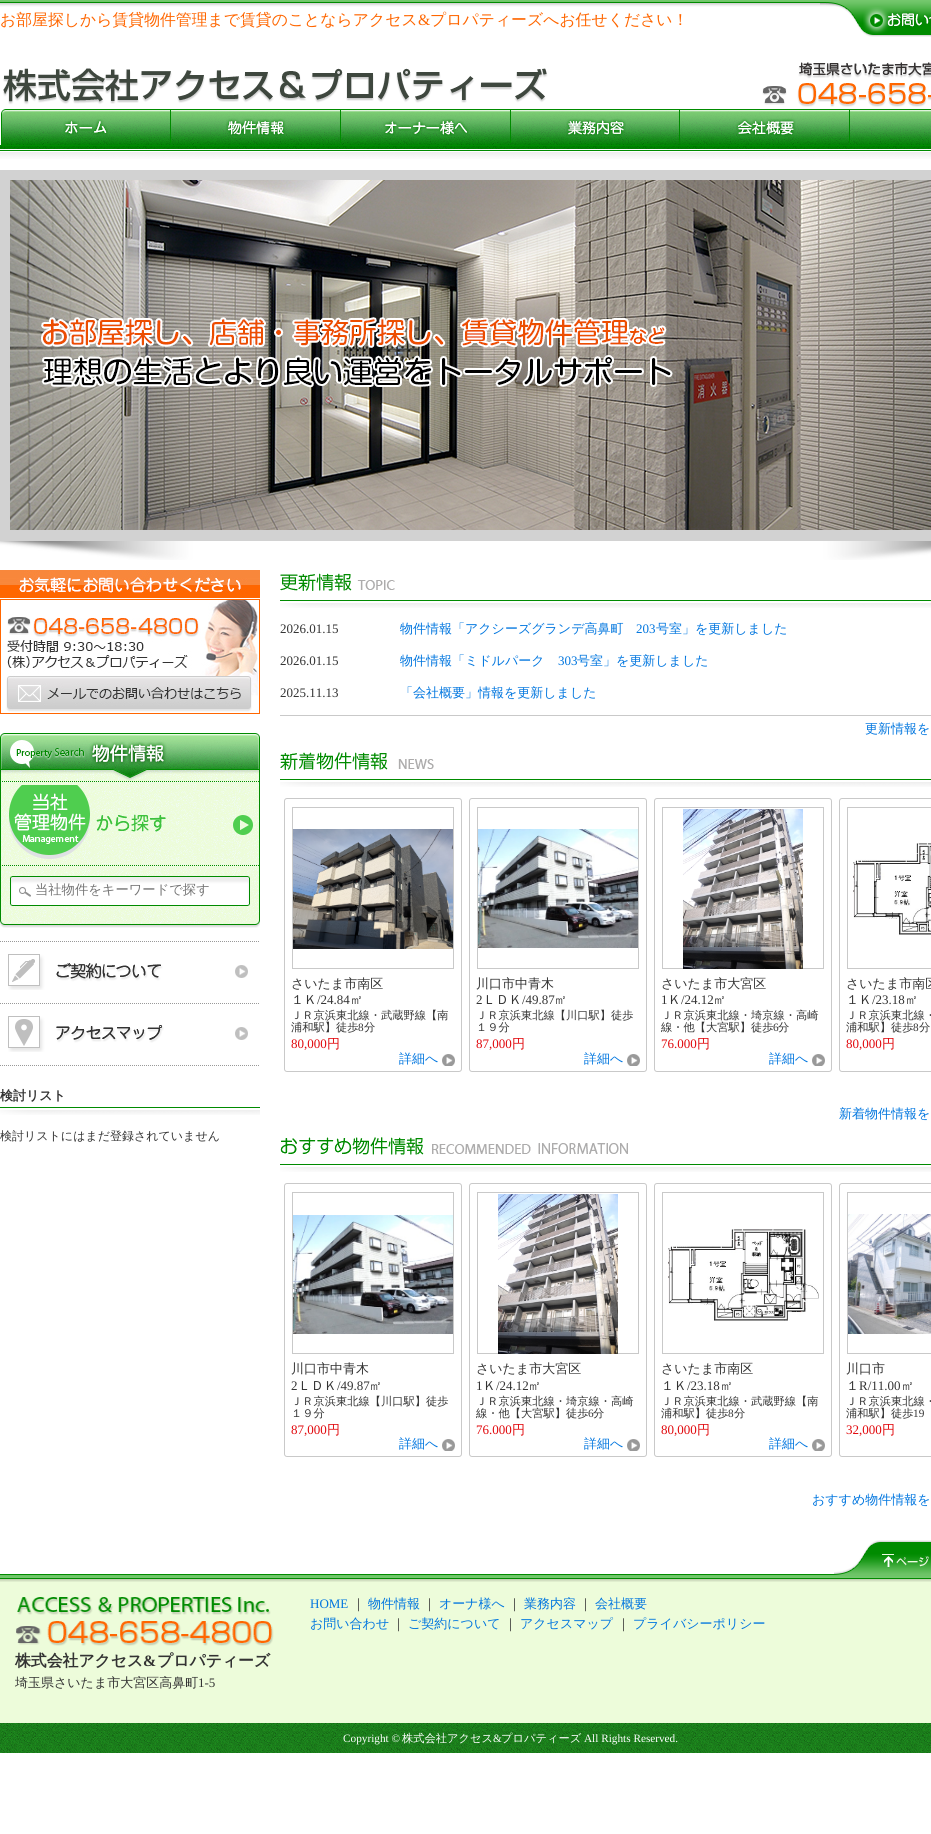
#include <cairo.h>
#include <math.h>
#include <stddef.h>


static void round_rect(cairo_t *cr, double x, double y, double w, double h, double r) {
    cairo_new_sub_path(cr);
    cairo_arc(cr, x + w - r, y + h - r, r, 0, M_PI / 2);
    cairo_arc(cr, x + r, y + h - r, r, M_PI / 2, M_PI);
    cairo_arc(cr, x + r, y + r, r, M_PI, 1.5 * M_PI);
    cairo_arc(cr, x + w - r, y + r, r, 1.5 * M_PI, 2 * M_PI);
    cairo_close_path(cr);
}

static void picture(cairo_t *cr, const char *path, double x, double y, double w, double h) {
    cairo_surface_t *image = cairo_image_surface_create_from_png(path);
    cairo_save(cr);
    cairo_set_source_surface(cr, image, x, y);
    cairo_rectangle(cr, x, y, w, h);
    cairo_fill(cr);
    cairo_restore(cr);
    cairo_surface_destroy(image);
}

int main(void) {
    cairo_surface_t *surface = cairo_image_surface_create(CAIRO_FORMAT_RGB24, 931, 1834);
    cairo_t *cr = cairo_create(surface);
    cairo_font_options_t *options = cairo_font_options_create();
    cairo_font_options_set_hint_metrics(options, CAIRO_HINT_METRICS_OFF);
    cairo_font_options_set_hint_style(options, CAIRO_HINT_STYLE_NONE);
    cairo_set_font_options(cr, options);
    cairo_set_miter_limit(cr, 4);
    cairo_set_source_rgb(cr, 1, 1, 1);
    cairo_paint(cr);
    picture(cr, "img1.png", 0, 0, 931, 159);
    cairo_select_font_face(cr, "WenQuanYi Zen Hei Medium", CAIRO_FONT_SLANT_NORMAL, CAIRO_FONT_WEIGHT_NORMAL);
    cairo_set_font_size(cr, 15.85);
    cairo_set_source_rgb(cr, 1, 0.4, 0);
    cairo_move_to(cr, 0, 25);
    cairo_show_text(cr, "お部屋探しから賃貸物件管理まで賃貸のことならアクセス");
    cairo_select_font_face(cr, "Liberation Serif", CAIRO_FONT_SLANT_NORMAL, CAIRO_FONT_WEIGHT_NORMAL);
    cairo_move_to(cr, 418, 25);
    cairo_show_text(cr, "&");
    cairo_select_font_face(cr, "WenQuanYi Zen Hei Medium", CAIRO_FONT_SLANT_NORMAL, CAIRO_FONT_WEIGHT_NORMAL);
    cairo_move_to(cr, 430, 25);
    cairo_show_text(cr, "プロパティーズへお任せください！");
    picture(cr, "img2.png", 820, 2, 111, 35);
    picture(cr, "img3.png", 863, 7, 68, 27);
    picture(cr, "img4.png", 3, 62, 928, 45);
    picture(cr, "img5.png", 1, 109, 930, 37);
    picture(cr, "img6.png", 63, 119, 45, 17);
    picture(cr, "img7.png", 226, 118, 60, 18);
    picture(cr, "img8.png", 383, 119, 86, 17);
    picture(cr, "img9.png", 566, 118, 60, 18);
    picture(cr, "img10.png", 736, 118, 60, 19);
    picture(cr, "img11.png", 0, 170, 931, 390);
    picture(cr, "img12.png", 10, 180, 921, 350);
    picture(cr, "img13.png", 0, 570, 260, 144);
    picture(cr, "img14.png", 0, 733, 260, 48);
    picture(cr, "img15.png", 0, 781, 260, 135);
    cairo_new_path(cr);
    cairo_move_to(cr, 0, 865.5);
    cairo_line_to(cr, 260, 865.5);
    cairo_set_source_rgb(cr, 0, 0.545, 0);
    cairo_set_line_width(cr, 1);
    cairo_set_dash(cr, (double[]){1, 1}, 2, 0);
    cairo_stroke(cr);
    cairo_new_path(cr);
    cairo_move_to(cr, 0, 781.5);
    cairo_line_to(cr, 260, 781.5);
    cairo_stroke(cr);
    picture(cr, "img16.png", 9, 785, 244, 74);
    picture(cr, "img17.png", 10, 876, 240, 30);
    picture(cr, "img18.png", 19, 887, 12, 10);
    cairo_set_font_size(cr, 13.3);
    cairo_set_source_rgb(cr, 0.459, 0.459, 0.459);
    cairo_move_to(cr, 35, 894);
    cairo_show_text(cr, "当社物件をキーワードで探す");
    picture(cr, "img19.png", 0, 916, 260, 12);
    cairo_new_path(cr);
    cairo_move_to(cr, 0, 1065.5);
    cairo_line_to(cr, 260, 1065.5);
    cairo_set_source_rgb(cr, 0.6, 0.6, 0.6);
    cairo_stroke(cr);
    cairo_new_path(cr);
    cairo_move_to(cr, 0, 941.5);
    cairo_line_to(cr, 260, 941.5);
    cairo_stroke(cr);
    picture(cr, "img20.png", 8, 954, 240, 36);
    cairo_new_path(cr);
    cairo_move_to(cr, 0, 1003.5);
    cairo_line_to(cr, 260, 1003.5);
    cairo_stroke(cr);
    picture(cr, "img21.png", 8, 1016, 240, 36);
    picture(cr, "img22.png", 0, 1107, 260, 8);
    cairo_select_font_face(cr, "WenQuanYi Zen Hei", CAIRO_FONT_SLANT_NORMAL, CAIRO_FONT_WEIGHT_BOLD);
    cairo_set_font_size(cr, 13);
    cairo_set_source_rgb(cr, 0.2, 0.2, 0.2);
    cairo_move_to(cr, 0, 1100);
    cairo_show_text(cr, "検討リスト");
    cairo_select_font_face(cr, "WenQuanYi Zen Hei Medium", CAIRO_FONT_SLANT_NORMAL, CAIRO_FONT_WEIGHT_NORMAL);
    cairo_set_font_size(cr, 12);
    cairo_move_to(cr, 0, 1140);
    cairo_show_text(cr, "検討リストにはまだ登録されていません");
    picture(cr, "img23.png", 280, 600, 651, 8);
    picture(cr, "img24.png", 280, 573, 115, 18);
    cairo_set_source_rgb(cr, 0.788, 0.788, 0.788);
    cairo_rectangle(cr, 280, 715, 651, 1);
    cairo_fill(cr);
    cairo_select_font_face(cr, "Liberation Serif", CAIRO_FONT_SLANT_NORMAL, CAIRO_FONT_WEIGHT_NORMAL);
    cairo_set_font_size(cr, 13);
    cairo_set_source_rgb(cr, 0.2, 0.2, 0.2);
    cairo_move_to(cr, 280, 633);
    cairo_show_text(cr, "2026.01.15");
    cairo_select_font_face(cr, "WenQuanYi Zen Hei Medium", CAIRO_FONT_SLANT_NORMAL, CAIRO_FONT_WEIGHT_NORMAL);
    cairo_set_source_rgb(cr, 0.004, 0.463, 0.875);
    cairo_move_to(cr, 400, 633);
    cairo_show_text(cr, "物件情報「アクシーズグランデ高鼻町");
    cairo_select_font_face(cr, "Liberation Serif", CAIRO_FONT_SLANT_NORMAL, CAIRO_FONT_WEIGHT_NORMAL);
    cairo_move_to(cr, 636, 633);
    cairo_show_text(cr, "203");
    cairo_select_font_face(cr, "WenQuanYi Zen Hei Medium", CAIRO_FONT_SLANT_NORMAL, CAIRO_FONT_WEIGHT_NORMAL);
    cairo_move_to(cr, 656, 633);
    cairo_show_text(cr, "号室」を更新しました");
    cairo_select_font_face(cr, "Liberation Serif", CAIRO_FONT_SLANT_NORMAL, CAIRO_FONT_WEIGHT_NORMAL);
    cairo_set_source_rgb(cr, 0.2, 0.2, 0.2);
    cairo_move_to(cr, 280, 665);
    cairo_show_text(cr, "2026.01.15");
    cairo_select_font_face(cr, "WenQuanYi Zen Hei Medium", CAIRO_FONT_SLANT_NORMAL, CAIRO_FONT_WEIGHT_NORMAL);
    cairo_set_source_rgb(cr, 0.004, 0.463, 0.875);
    cairo_move_to(cr, 400, 665);
    cairo_show_text(cr, "物件情報「ミドルパーク");
    cairo_select_font_face(cr, "Liberation Serif", CAIRO_FONT_SLANT_NORMAL, CAIRO_FONT_WEIGHT_NORMAL);
    cairo_move_to(cr, 558, 665);
    cairo_show_text(cr, "303");
    cairo_select_font_face(cr, "WenQuanYi Zen Hei Medium", CAIRO_FONT_SLANT_NORMAL, CAIRO_FONT_WEIGHT_NORMAL);
    cairo_move_to(cr, 577, 665);
    cairo_show_text(cr, "号室」を更新しました");
    cairo_select_font_face(cr, "Liberation Serif", CAIRO_FONT_SLANT_NORMAL, CAIRO_FONT_WEIGHT_NORMAL);
    cairo_set_source_rgb(cr, 0.2, 0.2, 0.2);
    cairo_move_to(cr, 280, 697);
    cairo_show_text(cr, "2025.11.13");
    cairo_select_font_face(cr, "WenQuanYi Zen Hei Medium", CAIRO_FONT_SLANT_NORMAL, CAIRO_FONT_WEIGHT_NORMAL);
    cairo_set_source_rgb(cr, 0.004, 0.463, 0.875);
    cairo_move_to(cr, 400, 697);
    cairo_show_text(cr, "「会社概要」情報を更新しました");
    cairo_move_to(cr, 865, 733);
    cairo_show_text(cr, "更新情報を");
    picture(cr, "img23.png", 280, 779, 651, 8);
    picture(cr, "img25.png", 280, 752, 154, 18);
    round_rect(cr, 284.5, 798.5, 177, 273, 2.5);
    cairo_set_source_rgb(cr, 0.788, 0.788, 0.788);
    cairo_set_dash(cr, NULL, 0, 0);
    cairo_stroke(cr);
    cairo_rectangle(cr, 292.5, 807.5, 161, 161);
    cairo_stroke(cr);
    picture(cr, "img26.png", 293, 829, 160, 120);
    cairo_set_source_rgb(cr, 0.2, 0.2, 0.2);
    cairo_move_to(cr, 291, 988);
    cairo_show_text(cr, "さいたま市南区");
    cairo_move_to(cr, 291, 1004);
    cairo_show_text(cr, "１Ｋ");
    cairo_select_font_face(cr, "Liberation Serif", CAIRO_FONT_SLANT_NORMAL, CAIRO_FONT_WEIGHT_NORMAL);
    cairo_move_to(cr, 317, 1004);
    cairo_show_text(cr, "/24.84");
    cairo_select_font_face(cr, "WenQuanYi Zen Hei Medium", CAIRO_FONT_SLANT_NORMAL, CAIRO_FONT_WEIGHT_NORMAL);
    cairo_move_to(cr, 350, 1004);
    cairo_show_text(cr, "㎡");
    cairo_set_font_size(cr, 11.25);
    cairo_move_to(cr, 291, 1019);
    cairo_show_text(cr, "ＪＲ京浜東北線・武蔵野線【南");
    cairo_move_to(cr, 291, 1031);
    cairo_show_text(cr, "浦和駅】徒歩");
    cairo_select_font_face(cr, "Liberation Serif", CAIRO_FONT_SLANT_NORMAL, CAIRO_FONT_WEIGHT_NORMAL);
    cairo_move_to(cr, 358, 1031);
    cairo_show_text(cr, "8");
    cairo_select_font_face(cr, "WenQuanYi Zen Hei Medium", CAIRO_FONT_SLANT_NORMAL, CAIRO_FONT_WEIGHT_NORMAL);
    cairo_move_to(cr, 364, 1031);
    cairo_show_text(cr, "分");
    cairo_select_font_face(cr, "Liberation Serif", CAIRO_FONT_SLANT_NORMAL, CAIRO_FONT_WEIGHT_NORMAL);
    cairo_set_font_size(cr, 13);
    cairo_set_source_rgb(cr, 0.882, 0.035, 0.047);
    cairo_move_to(cr, 291, 1048);
    cairo_show_text(cr, "80,000");
    cairo_select_font_face(cr, "WenQuanYi Zen Hei Medium", CAIRO_FONT_SLANT_NORMAL, CAIRO_FONT_WEIGHT_NORMAL);
    cairo_move_to(cr, 327, 1048);
    cairo_show_text(cr, "円");
    cairo_set_source_rgb(cr, 0.004, 0.463, 0.875);
    cairo_move_to(cr, 399, 1063);
    cairo_show_text(cr, "詳細へ");
    picture(cr, "img27.png", 442, 1054, 13, 12);
    round_rect(cr, 469.5, 798.5, 177, 273, 2.5);
    cairo_set_source_rgb(cr, 0.788, 0.788, 0.788);
    cairo_stroke(cr);
    cairo_rectangle(cr, 477.5, 807.5, 161, 161);
    cairo_stroke(cr);
    picture(cr, "img28.png", 478, 829, 160, 119);
    cairo_set_source_rgb(cr, 0.2, 0.2, 0.2);
    cairo_move_to(cr, 476, 988);
    cairo_show_text(cr, "川口市中青木");
    cairo_select_font_face(cr, "Liberation Serif", CAIRO_FONT_SLANT_NORMAL, CAIRO_FONT_WEIGHT_NORMAL);
    cairo_move_to(cr, 476, 1004);
    cairo_show_text(cr, "2");
    cairo_select_font_face(cr, "WenQuanYi Zen Hei Medium", CAIRO_FONT_SLANT_NORMAL, CAIRO_FONT_WEIGHT_NORMAL);
    cairo_move_to(cr, 483, 1004);
    cairo_show_text(cr, "ＬＤＫ");
    cairo_select_font_face(cr, "Liberation Serif", CAIRO_FONT_SLANT_NORMAL, CAIRO_FONT_WEIGHT_NORMAL);
    cairo_move_to(cr, 522, 1004);
    cairo_show_text(cr, "/49.87");
    cairo_select_font_face(cr, "WenQuanYi Zen Hei Medium", CAIRO_FONT_SLANT_NORMAL, CAIRO_FONT_WEIGHT_NORMAL);
    cairo_move_to(cr, 554, 1004);
    cairo_show_text(cr, "㎡");
    cairo_set_font_size(cr, 11.25);
    cairo_move_to(cr, 476, 1019);
    cairo_show_text(cr, "ＪＲ京浜東北線【川口駅】徒歩");
    cairo_move_to(cr, 476, 1031);
    cairo_show_text(cr, "１９分");
    cairo_select_font_face(cr, "Liberation Serif", CAIRO_FONT_SLANT_NORMAL, CAIRO_FONT_WEIGHT_NORMAL);
    cairo_set_font_size(cr, 13);
    cairo_set_source_rgb(cr, 0.882, 0.035, 0.047);
    cairo_move_to(cr, 476, 1048);
    cairo_show_text(cr, "87,000");
    cairo_select_font_face(cr, "WenQuanYi Zen Hei Medium", CAIRO_FONT_SLANT_NORMAL, CAIRO_FONT_WEIGHT_NORMAL);
    cairo_move_to(cr, 512, 1048);
    cairo_show_text(cr, "円");
    cairo_set_source_rgb(cr, 0.004, 0.463, 0.875);
    cairo_move_to(cr, 584, 1063);
    cairo_show_text(cr, "詳細へ");
    picture(cr, "img27.png", 627, 1054, 13, 12);
    round_rect(cr, 654.5, 798.5, 177, 273, 2.5);
    cairo_set_source_rgb(cr, 0.788, 0.788, 0.788);
    cairo_stroke(cr);
    cairo_rectangle(cr, 662.5, 807.5, 161, 161);
    cairo_stroke(cr);
    picture(cr, "img29.png", 683, 809, 120, 160);
    cairo_set_source_rgb(cr, 0.2, 0.2, 0.2);
    cairo_move_to(cr, 661, 988);
    cairo_show_text(cr, "さいたま市大宮区");
    cairo_select_font_face(cr, "Liberation Serif", CAIRO_FONT_SLANT_NORMAL, CAIRO_FONT_WEIGHT_NORMAL);
    cairo_move_to(cr, 661, 1004);
    cairo_show_text(cr, "1");
    cairo_select_font_face(cr, "WenQuanYi Zen Hei Medium", CAIRO_FONT_SLANT_NORMAL, CAIRO_FONT_WEIGHT_NORMAL);
    cairo_move_to(cr, 668, 1004);
    cairo_show_text(cr, "Ｋ");
    cairo_select_font_face(cr, "Liberation Serif", CAIRO_FONT_SLANT_NORMAL, CAIRO_FONT_WEIGHT_NORMAL);
    cairo_move_to(cr, 681, 1004);
    cairo_show_text(cr, "/24.12");
    cairo_select_font_face(cr, "WenQuanYi Zen Hei Medium", CAIRO_FONT_SLANT_NORMAL, CAIRO_FONT_WEIGHT_NORMAL);
    cairo_move_to(cr, 713, 1004);
    cairo_show_text(cr, "㎡");
    cairo_set_font_size(cr, 11.25);
    cairo_move_to(cr, 661, 1019);
    cairo_show_text(cr, "ＪＲ京浜東北線・埼京線・高崎");
    cairo_move_to(cr, 661, 1031);
    cairo_show_text(cr, "線・他【大宮駅】徒歩");
    cairo_select_font_face(cr, "Liberation Serif", CAIRO_FONT_SLANT_NORMAL, CAIRO_FONT_WEIGHT_NORMAL);
    cairo_move_to(cr, 773, 1031);
    cairo_show_text(cr, "6");
    cairo_select_font_face(cr, "WenQuanYi Zen Hei Medium", CAIRO_FONT_SLANT_NORMAL, CAIRO_FONT_WEIGHT_NORMAL);
    cairo_move_to(cr, 778, 1031);
    cairo_show_text(cr, "分");
    cairo_select_font_face(cr, "Liberation Serif", CAIRO_FONT_SLANT_NORMAL, CAIRO_FONT_WEIGHT_NORMAL);
    cairo_set_font_size(cr, 13);
    cairo_set_source_rgb(cr, 0.882, 0.035, 0.047);
    cairo_move_to(cr, 661, 1048);
    cairo_show_text(cr, "76.000");
    cairo_select_font_face(cr, "WenQuanYi Zen Hei Medium", CAIRO_FONT_SLANT_NORMAL, CAIRO_FONT_WEIGHT_NORMAL);
    cairo_move_to(cr, 697, 1048);
    cairo_show_text(cr, "円");
    cairo_set_source_rgb(cr, 0.004, 0.463, 0.875);
    cairo_move_to(cr, 769, 1063);
    cairo_show_text(cr, "詳細へ");
    picture(cr, "img27.png", 812, 1054, 13, 12);
    round_rect(cr, 839.5, 798.5, 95, 273, 2.5);
    cairo_set_source_rgb(cr, 0.788, 0.788, 0.788);
    cairo_stroke(cr);
    cairo_rectangle(cr, 847.5, 807.5, 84, 161);
    cairo_stroke(cr);
    picture(cr, "img30.png", 853, 843, 78, 92);
    cairo_set_source_rgb(cr, 0.2, 0.2, 0.2);
    cairo_move_to(cr, 846, 988);
    cairo_show_text(cr, "さいたま市南区");
    cairo_move_to(cr, 846, 1004);
    cairo_show_text(cr, "１Ｋ");
    cairo_select_font_face(cr, "Liberation Serif", CAIRO_FONT_SLANT_NORMAL, CAIRO_FONT_WEIGHT_NORMAL);
    cairo_move_to(cr, 872, 1004);
    cairo_show_text(cr, "/23.18");
    cairo_select_font_face(cr, "WenQuanYi Zen Hei Medium", CAIRO_FONT_SLANT_NORMAL, CAIRO_FONT_WEIGHT_NORMAL);
    cairo_move_to(cr, 905, 1004);
    cairo_show_text(cr, "㎡");
    cairo_set_font_size(cr, 11.25);
    cairo_move_to(cr, 846, 1019);
    cairo_show_text(cr, "ＪＲ京浜東北線・");
    cairo_move_to(cr, 846, 1031);
    cairo_show_text(cr, "浦和駅】徒歩");
    cairo_select_font_face(cr, "Liberation Serif", CAIRO_FONT_SLANT_NORMAL, CAIRO_FONT_WEIGHT_NORMAL);
    cairo_move_to(cr, 913, 1031);
    cairo_show_text(cr, "8");
    cairo_select_font_face(cr, "WenQuanYi Zen Hei Medium", CAIRO_FONT_SLANT_NORMAL, CAIRO_FONT_WEIGHT_NORMAL);
    cairo_move_to(cr, 919, 1031);
    cairo_show_text(cr, "分");
    cairo_select_font_face(cr, "Liberation Serif", CAIRO_FONT_SLANT_NORMAL, CAIRO_FONT_WEIGHT_NORMAL);
    cairo_set_font_size(cr, 13);
    cairo_set_source_rgb(cr, 0.882, 0.035, 0.047);
    cairo_move_to(cr, 846, 1048);
    cairo_show_text(cr, "80,000");
    cairo_select_font_face(cr, "WenQuanYi Zen Hei Medium", CAIRO_FONT_SLANT_NORMAL, CAIRO_FONT_WEIGHT_NORMAL);
    cairo_move_to(cr, 882, 1048);
    cairo_show_text(cr, "円");
    cairo_set_source_rgb(cr, 0.004, 0.463, 0.875);
    cairo_move_to(cr, 839, 1118);
    cairo_show_text(cr, "新着物件情報を");
    picture(cr, "img23.png", 280, 1164, 651, 8);
    picture(cr, "img31.png", 280, 1137, 348, 18);
    round_rect(cr, 284.5, 1183.5, 177, 273, 2.5);
    cairo_set_source_rgb(cr, 0.788, 0.788, 0.788);
    cairo_stroke(cr);
    cairo_rectangle(cr, 292.5, 1192.5, 161, 161);
    cairo_stroke(cr);
    picture(cr, "img32.png", 293, 1215, 160, 119);
    cairo_set_source_rgb(cr, 0.2, 0.2, 0.2);
    cairo_move_to(cr, 291, 1373);
    cairo_show_text(cr, "川口市中青木");
    cairo_select_font_face(cr, "Liberation Serif", CAIRO_FONT_SLANT_NORMAL, CAIRO_FONT_WEIGHT_NORMAL);
    cairo_move_to(cr, 291, 1390);
    cairo_show_text(cr, "2");
    cairo_select_font_face(cr, "WenQuanYi Zen Hei Medium", CAIRO_FONT_SLANT_NORMAL, CAIRO_FONT_WEIGHT_NORMAL);
    cairo_move_to(cr, 298, 1390);
    cairo_show_text(cr, "ＬＤＫ");
    cairo_select_font_face(cr, "Liberation Serif", CAIRO_FONT_SLANT_NORMAL, CAIRO_FONT_WEIGHT_NORMAL);
    cairo_move_to(cr, 337, 1390);
    cairo_show_text(cr, "/49.87");
    cairo_select_font_face(cr, "WenQuanYi Zen Hei Medium", CAIRO_FONT_SLANT_NORMAL, CAIRO_FONT_WEIGHT_NORMAL);
    cairo_move_to(cr, 369, 1390);
    cairo_show_text(cr, "㎡");
    cairo_set_font_size(cr, 11.25);
    cairo_move_to(cr, 291, 1405);
    cairo_show_text(cr, "ＪＲ京浜東北線【川口駅】徒歩");
    cairo_move_to(cr, 291, 1417);
    cairo_show_text(cr, "１９分");
    cairo_select_font_face(cr, "Liberation Serif", CAIRO_FONT_SLANT_NORMAL, CAIRO_FONT_WEIGHT_NORMAL);
    cairo_set_font_size(cr, 13);
    cairo_set_source_rgb(cr, 0.882, 0.035, 0.047);
    cairo_move_to(cr, 291, 1434);
    cairo_show_text(cr, "87,000");
    cairo_select_font_face(cr, "WenQuanYi Zen Hei Medium", CAIRO_FONT_SLANT_NORMAL, CAIRO_FONT_WEIGHT_NORMAL);
    cairo_move_to(cr, 327, 1434);
    cairo_show_text(cr, "円");
    cairo_set_source_rgb(cr, 0.004, 0.463, 0.875);
    cairo_move_to(cr, 399, 1448);
    cairo_show_text(cr, "詳細へ");
    picture(cr, "img27.png", 442, 1439, 13, 12);
    round_rect(cr, 469.5, 1183.5, 177, 273, 2.5);
    cairo_set_source_rgb(cr, 0.788, 0.788, 0.788);
    cairo_stroke(cr);
    cairo_rectangle(cr, 477.5, 1192.5, 161, 161);
    cairo_stroke(cr);
    picture(cr, "img33.png", 498, 1194, 120, 160);
    cairo_set_source_rgb(cr, 0.2, 0.2, 0.2);
    cairo_move_to(cr, 476, 1373);
    cairo_show_text(cr, "さいたま市大宮区");
    cairo_select_font_face(cr, "Liberation Serif", CAIRO_FONT_SLANT_NORMAL, CAIRO_FONT_WEIGHT_NORMAL);
    cairo_move_to(cr, 476, 1390);
    cairo_show_text(cr, "1");
    cairo_select_font_face(cr, "WenQuanYi Zen Hei Medium", CAIRO_FONT_SLANT_NORMAL, CAIRO_FONT_WEIGHT_NORMAL);
    cairo_move_to(cr, 483, 1390);
    cairo_show_text(cr, "Ｋ");
    cairo_select_font_face(cr, "Liberation Serif", CAIRO_FONT_SLANT_NORMAL, CAIRO_FONT_WEIGHT_NORMAL);
    cairo_move_to(cr, 496, 1390);
    cairo_show_text(cr, "/24.12");
    cairo_select_font_face(cr, "WenQuanYi Zen Hei Medium", CAIRO_FONT_SLANT_NORMAL, CAIRO_FONT_WEIGHT_NORMAL);
    cairo_move_to(cr, 528, 1390);
    cairo_show_text(cr, "㎡");
    cairo_set_font_size(cr, 11.25);
    cairo_move_to(cr, 476, 1405);
    cairo_show_text(cr, "ＪＲ京浜東北線・埼京線・高崎");
    cairo_move_to(cr, 476, 1417);
    cairo_show_text(cr, "線・他【大宮駅】徒歩");
    cairo_select_font_face(cr, "Liberation Serif", CAIRO_FONT_SLANT_NORMAL, CAIRO_FONT_WEIGHT_NORMAL);
    cairo_move_to(cr, 588, 1417);
    cairo_show_text(cr, "6");
    cairo_select_font_face(cr, "WenQuanYi Zen Hei Medium", CAIRO_FONT_SLANT_NORMAL, CAIRO_FONT_WEIGHT_NORMAL);
    cairo_move_to(cr, 593, 1417);
    cairo_show_text(cr, "分");
    cairo_select_font_face(cr, "Liberation Serif", CAIRO_FONT_SLANT_NORMAL, CAIRO_FONT_WEIGHT_NORMAL);
    cairo_set_font_size(cr, 13);
    cairo_set_source_rgb(cr, 0.882, 0.035, 0.047);
    cairo_move_to(cr, 476, 1434);
    cairo_show_text(cr, "76.000");
    cairo_select_font_face(cr, "WenQuanYi Zen Hei Medium", CAIRO_FONT_SLANT_NORMAL, CAIRO_FONT_WEIGHT_NORMAL);
    cairo_move_to(cr, 512, 1434);
    cairo_show_text(cr, "円");
    cairo_set_source_rgb(cr, 0.004, 0.463, 0.875);
    cairo_move_to(cr, 584, 1448);
    cairo_show_text(cr, "詳細へ");
    picture(cr, "img27.png", 627, 1439, 13, 12);
    round_rect(cr, 654.5, 1183.5, 177, 273, 2.5);
    cairo_set_source_rgb(cr, 0.788, 0.788, 0.788);
    cairo_stroke(cr);
    cairo_rectangle(cr, 662.5, 1192.5, 161, 161);
    cairo_stroke(cr);
    picture(cr, "img34.png", 668, 1229, 151, 92);
    cairo_set_source_rgb(cr, 0.2, 0.2, 0.2);
    cairo_move_to(cr, 661, 1373);
    cairo_show_text(cr, "さいたま市南区");
    cairo_move_to(cr, 661, 1390);
    cairo_show_text(cr, "１Ｋ");
    cairo_select_font_face(cr, "Liberation Serif", CAIRO_FONT_SLANT_NORMAL, CAIRO_FONT_WEIGHT_NORMAL);
    cairo_move_to(cr, 687, 1390);
    cairo_show_text(cr, "/23.18");
    cairo_select_font_face(cr, "WenQuanYi Zen Hei Medium", CAIRO_FONT_SLANT_NORMAL, CAIRO_FONT_WEIGHT_NORMAL);
    cairo_move_to(cr, 720, 1390);
    cairo_show_text(cr, "㎡");
    cairo_set_font_size(cr, 11.25);
    cairo_move_to(cr, 661, 1405);
    cairo_show_text(cr, "ＪＲ京浜東北線・武蔵野線【南");
    cairo_move_to(cr, 661, 1417);
    cairo_show_text(cr, "浦和駅】徒歩");
    cairo_select_font_face(cr, "Liberation Serif", CAIRO_FONT_SLANT_NORMAL, CAIRO_FONT_WEIGHT_NORMAL);
    cairo_move_to(cr, 728, 1417);
    cairo_show_text(cr, "8");
    cairo_select_font_face(cr, "WenQuanYi Zen Hei Medium", CAIRO_FONT_SLANT_NORMAL, CAIRO_FONT_WEIGHT_NORMAL);
    cairo_move_to(cr, 734, 1417);
    cairo_show_text(cr, "分");
    cairo_select_font_face(cr, "Liberation Serif", CAIRO_FONT_SLANT_NORMAL, CAIRO_FONT_WEIGHT_NORMAL);
    cairo_set_font_size(cr, 13);
    cairo_set_source_rgb(cr, 0.882, 0.035, 0.047);
    cairo_move_to(cr, 661, 1434);
    cairo_show_text(cr, "80,000");
    cairo_select_font_face(cr, "WenQuanYi Zen Hei Medium", CAIRO_FONT_SLANT_NORMAL, CAIRO_FONT_WEIGHT_NORMAL);
    cairo_move_to(cr, 697, 1434);
    cairo_show_text(cr, "円");
    cairo_set_source_rgb(cr, 0.004, 0.463, 0.875);
    cairo_move_to(cr, 769, 1448);
    cairo_show_text(cr, "詳細へ");
    picture(cr, "img27.png", 812, 1439, 13, 12);
    round_rect(cr, 839.5, 1183.5, 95, 273, 2.5);
    cairo_set_source_rgb(cr, 0.788, 0.788, 0.788);
    cairo_stroke(cr);
    cairo_rectangle(cr, 847.5, 1192.5, 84, 161);
    cairo_stroke(cr);
    picture(cr, "img35.png", 848, 1214, 83, 120);
    cairo_set_source_rgb(cr, 0.2, 0.2, 0.2);
    cairo_move_to(cr, 846, 1373);
    cairo_show_text(cr, "川口市");
    cairo_move_to(cr, 846, 1390);
    cairo_show_text(cr, "１");
    cairo_select_font_face(cr, "Liberation Serif", CAIRO_FONT_SLANT_NORMAL, CAIRO_FONT_WEIGHT_NORMAL);
    cairo_move_to(cr, 859, 1390);
    cairo_show_text(cr, "R/11.00");
    cairo_select_font_face(cr, "WenQuanYi Zen Hei Medium", CAIRO_FONT_SLANT_NORMAL, CAIRO_FONT_WEIGHT_NORMAL);
    cairo_move_to(cr, 901, 1390);
    cairo_show_text(cr, "㎡");
    cairo_set_font_size(cr, 11.25);
    cairo_move_to(cr, 846, 1405);
    cairo_show_text(cr, "ＪＲ京浜東北線・");
    cairo_move_to(cr, 846, 1417);
    cairo_show_text(cr, "浦和駅】徒歩");
    cairo_select_font_face(cr, "Liberation Serif", CAIRO_FONT_SLANT_NORMAL, CAIRO_FONT_WEIGHT_NORMAL);
    cairo_move_to(cr, 913, 1417);
    cairo_show_text(cr, "19");
    cairo_set_font_size(cr, 13);
    cairo_set_source_rgb(cr, 0.882, 0.035, 0.047);
    cairo_move_to(cr, 846, 1434);
    cairo_show_text(cr, "32,000");
    cairo_select_font_face(cr, "WenQuanYi Zen Hei Medium", CAIRO_FONT_SLANT_NORMAL, CAIRO_FONT_WEIGHT_NORMAL);
    cairo_move_to(cr, 882, 1434);
    cairo_show_text(cr, "円");
    cairo_set_source_rgb(cr, 0.004, 0.463, 0.875);
    cairo_move_to(cr, 812, 1504);
    cairo_show_text(cr, "おすすめ物件情報を");
    cairo_set_source_rgb(cr, 0.929, 0.988, 0.855);
    cairo_rectangle(cr, 0, 1579, 931, 144);
    cairo_fill(cr);
    picture(cr, "img37.png", 0, 1574, 931, 8);
    picture(cr, "img36.png", 834, 1540, 97, 35);
    cairo_select_font_face(cr, "Liberation Serif", CAIRO_FONT_SLANT_NORMAL, CAIRO_FONT_WEIGHT_NORMAL);
    cairo_set_source_rgb(cr, 0.004, 0.463, 0.875);
    cairo_move_to(cr, 310, 1608);
    cairo_show_text(cr, "HOME");
    cairo_select_font_face(cr, "WenQuanYi Zen Hei Medium", CAIRO_FONT_SLANT_NORMAL, CAIRO_FONT_WEIGHT_NORMAL);
    cairo_set_source_rgb(cr, 0.2, 0.2, 0.2);
    cairo_move_to(cr, 352, 1608);
    cairo_show_text(cr, "｜");
    cairo_set_source_rgb(cr, 0.004, 0.463, 0.875);
    cairo_move_to(cr, 368, 1608);
    cairo_show_text(cr, "物件情報");
    cairo_set_source_rgb(cr, 0.2, 0.2, 0.2);
    cairo_move_to(cr, 423, 1608);
    cairo_show_text(cr, "｜");
    cairo_set_source_rgb(cr, 0.004, 0.463, 0.875);
    cairo_move_to(cr, 439, 1608);
    cairo_show_text(cr, "オーナ様へ");
    cairo_set_source_rgb(cr, 0.2, 0.2, 0.2);
    cairo_move_to(cr, 508, 1608);
    cairo_show_text(cr, "｜");
    cairo_set_source_rgb(cr, 0.004, 0.463, 0.875);
    cairo_move_to(cr, 524, 1608);
    cairo_show_text(cr, "業務内容");
    cairo_set_source_rgb(cr, 0.2, 0.2, 0.2);
    cairo_move_to(cr, 579, 1608);
    cairo_show_text(cr, "｜");
    cairo_set_source_rgb(cr, 0.004, 0.463, 0.875);
    cairo_move_to(cr, 595, 1608);
    cairo_show_text(cr, "会社概要");
    cairo_move_to(cr, 310, 1628);
    cairo_show_text(cr, "お問い合わせ");
    cairo_set_source_rgb(cr, 0.2, 0.2, 0.2);
    cairo_move_to(cr, 392, 1628);
    cairo_show_text(cr, "｜");
    cairo_set_source_rgb(cr, 0.004, 0.463, 0.875);
    cairo_move_to(cr, 408, 1628);
    cairo_show_text(cr, "ご契約について");
    cairo_set_source_rgb(cr, 0.2, 0.2, 0.2);
    cairo_move_to(cr, 504, 1628);
    cairo_show_text(cr, "｜");
    cairo_set_source_rgb(cr, 0.004, 0.463, 0.875);
    cairo_move_to(cr, 520, 1628);
    cairo_show_text(cr, "アクセスマップ");
    cairo_set_source_rgb(cr, 0.2, 0.2, 0.2);
    cairo_move_to(cr, 617, 1628);
    cairo_show_text(cr, "｜");
    cairo_set_source_rgb(cr, 0.004, 0.463, 0.875);
    cairo_move_to(cr, 633, 1628);
    cairo_show_text(cr, "プライバシーポリシー");
    picture(cr, "img38.png", 16, 1597, 258, 49);
    cairo_select_font_face(cr, "WenQuanYi Zen Hei", CAIRO_FONT_SLANT_NORMAL, CAIRO_FONT_WEIGHT_BOLD);
    cairo_set_font_size(cr, 15.85);
    cairo_set_source_rgb(cr, 0.2, 0.2, 0.2);
    cairo_move_to(cr, 15, 1666);
    cairo_show_text(cr, "株式会社アクセス");
    cairo_select_font_face(cr, "Liberation Serif", CAIRO_FONT_SLANT_NORMAL, CAIRO_FONT_WEIGHT_BOLD);
    cairo_move_to(cr, 143, 1666);
    cairo_show_text(cr, "&");
    cairo_select_font_face(cr, "WenQuanYi Zen Hei", CAIRO_FONT_SLANT_NORMAL, CAIRO_FONT_WEIGHT_BOLD);
    cairo_move_to(cr, 157, 1666);
    cairo_show_text(cr, "プロパティーズ");
    cairo_select_font_face(cr, "WenQuanYi Zen Hei Medium", CAIRO_FONT_SLANT_NORMAL, CAIRO_FONT_WEIGHT_NORMAL);
    cairo_set_font_size(cr, 13);
    cairo_move_to(cr, 15, 1687);
    cairo_show_text(cr, "埼玉県さいたま市大宮区高鼻町");
    cairo_select_font_face(cr, "Liberation Serif", CAIRO_FONT_SLANT_NORMAL, CAIRO_FONT_WEIGHT_NORMAL);
    cairo_move_to(cr, 198, 1687);
    cairo_show_text(cr, "1-5");
    picture(cr, "img39.png", 0, 1723, 931, 30);
    cairo_set_font_size(cr, 11.25);
    cairo_set_source_rgb(cr, 1, 1, 1);
    cairo_move_to(cr, 343, 1742);
    cairo_show_text(cr, "Copyright ©");
    cairo_select_font_face(cr, "WenQuanYi Zen Hei Medium", CAIRO_FONT_SLANT_NORMAL, CAIRO_FONT_WEIGHT_NORMAL);
    cairo_move_to(cr, 402, 1742);
    cairo_show_text(cr, "株式会社アクセス");
    cairo_select_font_face(cr, "Liberation Serif", CAIRO_FONT_SLANT_NORMAL, CAIRO_FONT_WEIGHT_NORMAL);
    cairo_move_to(cr, 493, 1742);
    cairo_show_text(cr, "&");
    cairo_select_font_face(cr, "WenQuanYi Zen Hei Medium", CAIRO_FONT_SLANT_NORMAL, CAIRO_FONT_WEIGHT_NORMAL);
    cairo_move_to(cr, 501, 1742);
    cairo_show_text(cr, "プロパティーズ");
    cairo_select_font_face(cr, "Liberation Serif", CAIRO_FONT_SLANT_NORMAL, CAIRO_FONT_WEIGHT_NORMAL);
    cairo_move_to(cr, 584, 1742);
    cairo_show_text(cr, "All Rights Reserved.");
    cairo_surface_write_to_png(surface, "page.png");
    cairo_font_options_destroy(options);
    cairo_destroy(cr);
    cairo_surface_destroy(surface);
    return 0;
}
